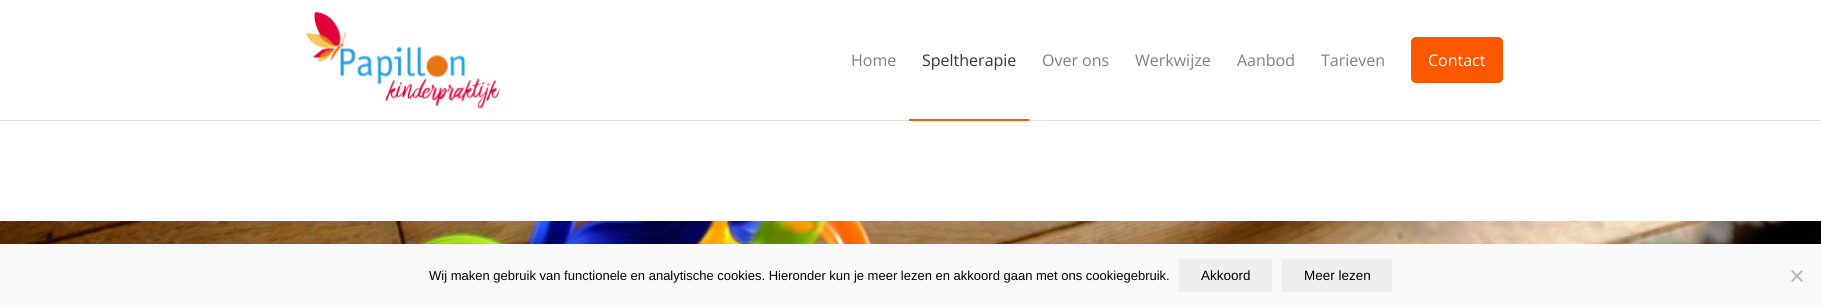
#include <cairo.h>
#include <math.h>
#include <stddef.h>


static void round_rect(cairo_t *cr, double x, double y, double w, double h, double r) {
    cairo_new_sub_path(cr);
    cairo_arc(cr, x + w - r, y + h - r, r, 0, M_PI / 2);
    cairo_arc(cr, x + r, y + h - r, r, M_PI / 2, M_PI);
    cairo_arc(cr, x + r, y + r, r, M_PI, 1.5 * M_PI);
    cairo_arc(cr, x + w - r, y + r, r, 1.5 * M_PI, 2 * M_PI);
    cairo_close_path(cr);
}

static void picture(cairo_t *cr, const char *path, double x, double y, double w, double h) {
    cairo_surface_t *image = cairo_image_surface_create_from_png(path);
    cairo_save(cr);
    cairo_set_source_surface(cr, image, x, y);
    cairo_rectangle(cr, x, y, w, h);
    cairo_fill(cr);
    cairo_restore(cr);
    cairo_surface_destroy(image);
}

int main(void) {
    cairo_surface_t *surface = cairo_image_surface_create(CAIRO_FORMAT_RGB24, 1821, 307);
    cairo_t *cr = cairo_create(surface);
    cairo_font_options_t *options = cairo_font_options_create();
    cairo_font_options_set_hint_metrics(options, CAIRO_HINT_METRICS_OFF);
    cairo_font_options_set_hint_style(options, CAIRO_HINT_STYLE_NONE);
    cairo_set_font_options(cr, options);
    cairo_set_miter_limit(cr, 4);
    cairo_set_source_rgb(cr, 1, 1, 1);
    cairo_paint(cr);
    cairo_set_source_rgb(cr, 0.882, 0.882, 0.882);
    cairo_rectangle(cr, 0, 120, 1821, 1);
    cairo_fill(cr);
    picture(cr, "img1.png", 306, 11, 194, 98);
    cairo_select_font_face(cr, "Open Sans", CAIRO_FONT_SLANT_NORMAL, CAIRO_FONT_WEIGHT_NORMAL);
    cairo_set_font_size(cr, 16);
    cairo_set_source_rgb(cr, 0.502, 0.502, 0.502);
    cairo_move_to(cr, 851, 66);
    cairo_show_text(cr, "Home");
    cairo_set_source_rgb(cr, 0.2, 0.2, 0.2);
    cairo_move_to(cr, 922, 66);
    cairo_show_text(cr, "Speltherapie");
    cairo_set_source_rgb(cr, 0.988, 0.345, 0);
    cairo_rectangle(cr, 909, 119, 120, 2);
    cairo_fill(cr);
    cairo_set_source_rgb(cr, 0.502, 0.502, 0.502);
    cairo_move_to(cr, 1042, 66);
    cairo_show_text(cr, "Over ons");
    cairo_move_to(cr, 1135, 66);
    cairo_show_text(cr, "Werkwijze");
    cairo_move_to(cr, 1237, 66);
    cairo_show_text(cr, "Aanbod");
    cairo_move_to(cr, 1321, 66);
    cairo_show_text(cr, "Tarieven");
    cairo_set_source_rgb(cr, 0.988, 0.345, 0);
    round_rect(cr, 1412, 38, 90, 44, 4);
    cairo_fill_preserve(cr);
    cairo_stroke(cr);
    cairo_set_source_rgb(cr, 1, 1, 1);
    cairo_move_to(cr, 1428, 66);
    cairo_show_text(cr, "Contact");
    picture(cr, "img2.png", 0, 221, 1821, 23);
    cairo_set_source_rgb(cr, 0.973, 0.973, 0.973);
    cairo_rectangle(cr, 0, 244, 1821, 63);
    cairo_fill(cr);
    cairo_select_font_face(cr, "Liberation Sans", CAIRO_FONT_SLANT_NORMAL, CAIRO_FONT_WEIGHT_NORMAL);
    cairo_set_font_size(cr, 13);
    cairo_set_source_rgb(cr, 0, 0, 0);
    cairo_move_to(cr, 429, 280);
    cairo_show_text(cr, "Wij maken gebruik van functionele en analytische cookies. Hieronder kun je meer lezen en akkoord gaan met ons cookiegebruik.");
    cairo_set_source_rgb(cr, 0.937, 0.937, 0.937);
    cairo_rectangle(cr, 1179, 259, 93, 33);
    cairo_fill(cr);
    cairo_set_font_size(cr, 13.5);
    cairo_set_source_rgb(cr, 0, 0, 0);
    cairo_move_to(cr, 1201, 280);
    cairo_show_text(cr, "Akkoord");
    cairo_set_source_rgb(cr, 0.937, 0.937, 0.937);
    cairo_rectangle(cr, 1282, 259, 110, 33);
    cairo_fill(cr);
    cairo_set_source_rgb(cr, 0, 0, 0);
    cairo_move_to(cr, 1304, 280);
    cairo_show_text(cr, "Meer lezen");
    cairo_set_source_rgb(cr, 0.737, 0.737, 0.737);
    cairo_new_path(cr);
    cairo_move_to(cr, 1801.5, 270);
    cairo_line_to(cr, 1803, 271.5);
    cairo_line_to(cr, 1792.5, 282);
    cairo_line_to(cr, 1791, 280.5);
    cairo_close_path(cr);
    cairo_fill(cr);
    cairo_new_path(cr);
    cairo_move_to(cr, 1791, 271.5);
    cairo_line_to(cr, 1792.5, 270);
    cairo_line_to(cr, 1803, 280.5);
    cairo_line_to(cr, 1801.5, 282);
    cairo_close_path(cr);
    cairo_fill(cr);
    cairo_surface_write_to_png(surface, "page.png");
    cairo_font_options_destroy(options);
    cairo_destroy(cr);
    cairo_surface_destroy(surface);
    return 0;
}
